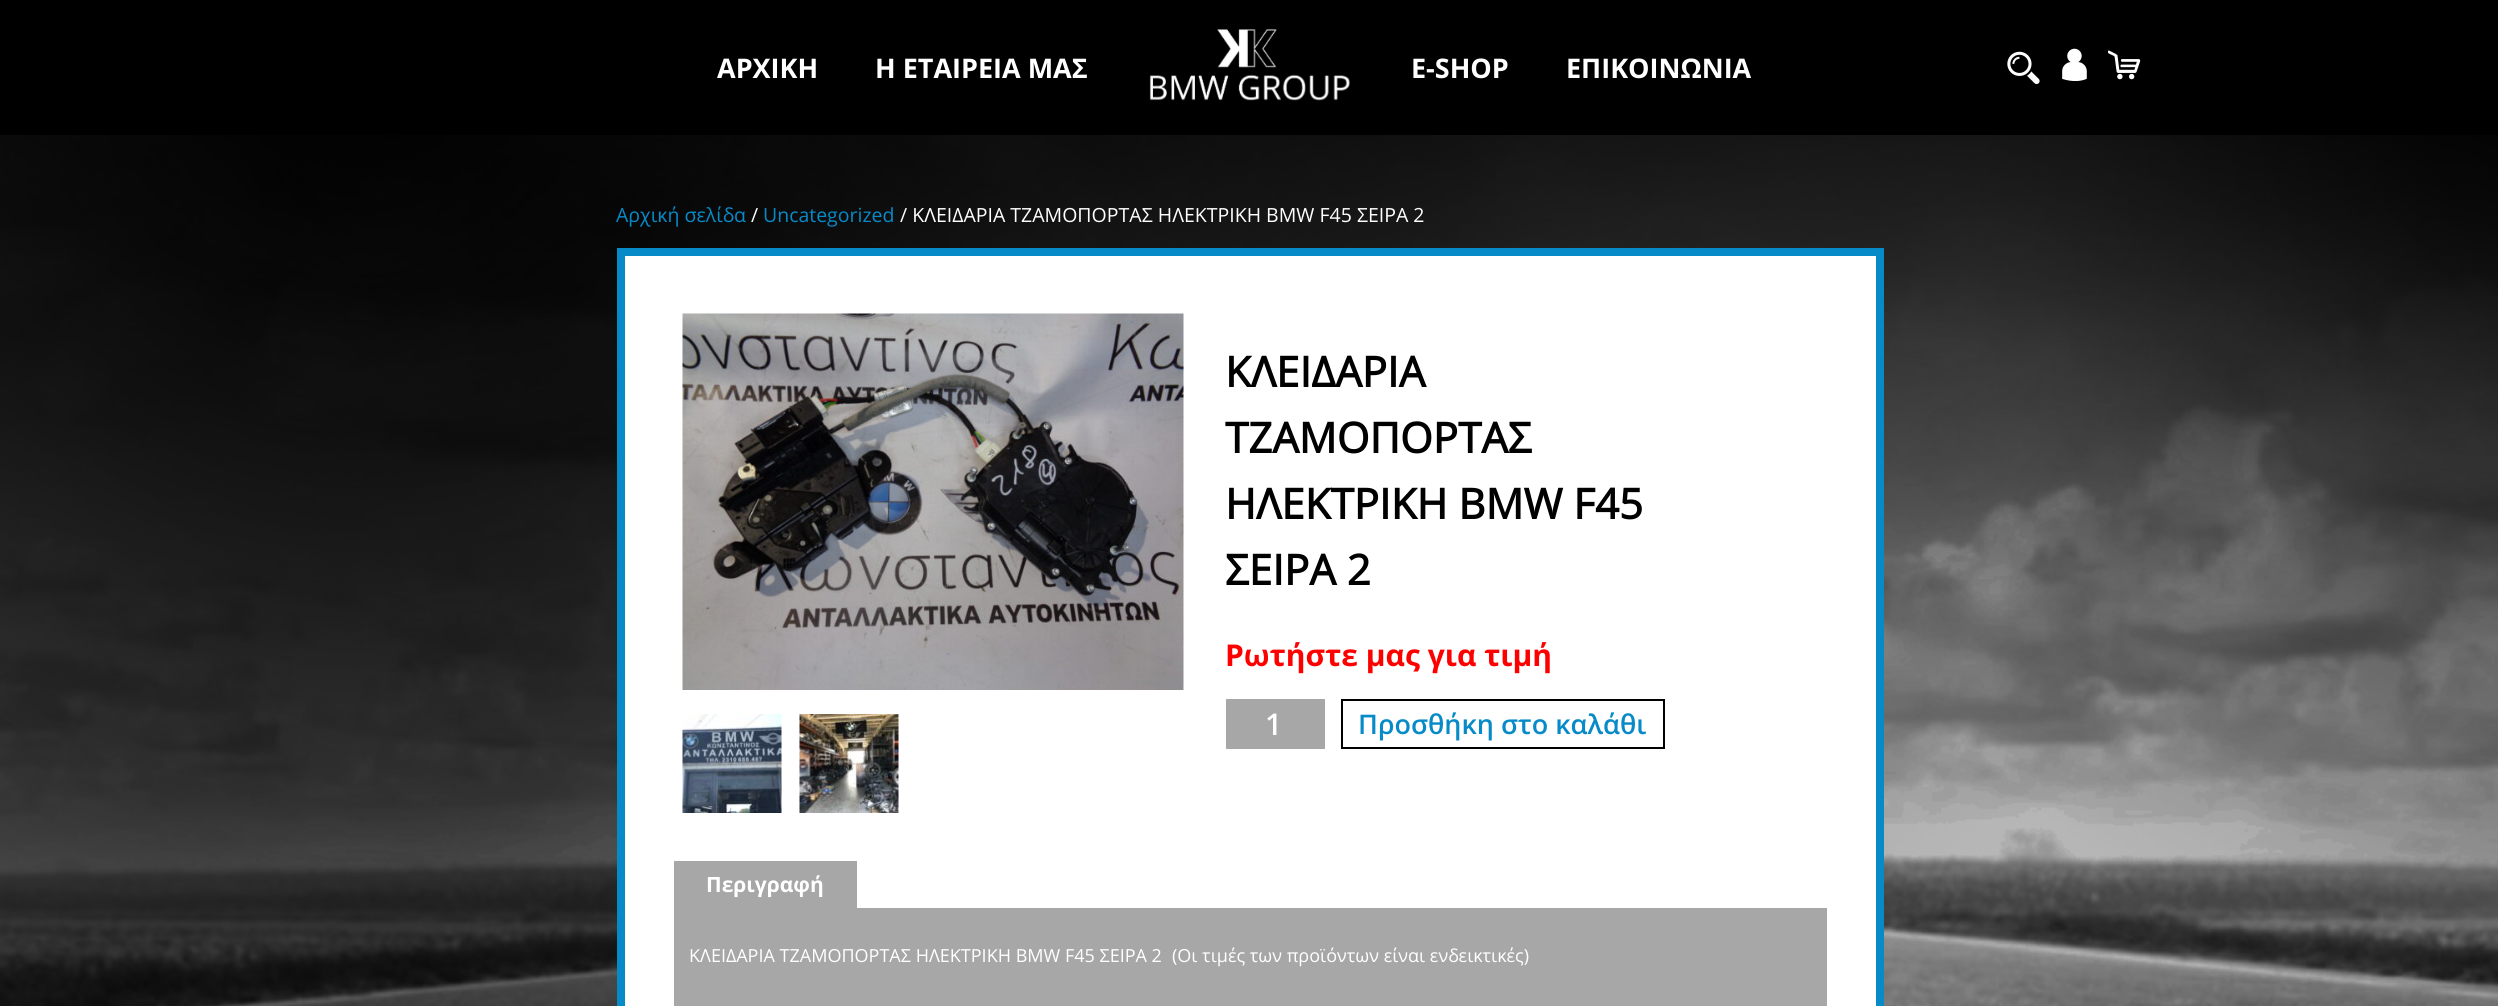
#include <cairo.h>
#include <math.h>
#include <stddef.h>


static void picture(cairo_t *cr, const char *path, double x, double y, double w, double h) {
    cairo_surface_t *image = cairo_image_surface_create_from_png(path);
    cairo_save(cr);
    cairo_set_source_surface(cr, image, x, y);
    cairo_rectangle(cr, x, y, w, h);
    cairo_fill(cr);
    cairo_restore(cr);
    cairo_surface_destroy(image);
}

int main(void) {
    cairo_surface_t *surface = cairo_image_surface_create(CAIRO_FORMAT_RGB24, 2498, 1006);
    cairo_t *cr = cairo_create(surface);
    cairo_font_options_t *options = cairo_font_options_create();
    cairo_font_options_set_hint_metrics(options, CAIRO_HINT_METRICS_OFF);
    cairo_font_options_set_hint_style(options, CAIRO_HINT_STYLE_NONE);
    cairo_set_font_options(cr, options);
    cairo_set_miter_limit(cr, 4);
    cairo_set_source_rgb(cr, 0, 0, 0);
    cairo_paint(cr);
    cairo_select_font_face(cr, "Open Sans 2", CAIRO_FONT_SLANT_NORMAL, CAIRO_FONT_WEIGHT_BOLD);
    cairo_set_font_size(cr, 27);
    cairo_set_source_rgb(cr, 1, 1, 1);
    cairo_move_to(cr, 717, 78);
    cairo_show_text(cr, "ΑΡΧΙΚΗ");
    cairo_move_to(cr, 875, 78);
    cairo_show_text(cr, "Η ΕΤΑΙΡΕΙΑ ΜΑΣ");
    picture(cr, "img1.png", 1149, 29, 201, 72);
    cairo_move_to(cr, 1411, 78);
    cairo_show_text(cr, "E-SHOP");
    cairo_move_to(cr, 1566, 78);
    cairo_show_text(cr, "ΕΠΙΚΟΙΝΩΝΙΑ");
    picture(cr, "img2.png", 2007, 51, 33, 33);
    picture(cr, "img3.png", 2062, 48, 25, 33);
    picture(cr, "img4.png", 2108, 50, 33, 30);
    picture(cr, "img5.png", 0, 135, 2498, 871);
    cairo_select_font_face(cr, "Open Sans", CAIRO_FONT_SLANT_NORMAL, CAIRO_FONT_WEIGHT_NORMAL);
    cairo_set_font_size(cr, 19.5);
    cairo_set_source_rgb(cr, 0.031, 0.541, 0.784);
    cairo_move_to(cr, 616, 222);
    cairo_show_text(cr, "Αρχική σελίδα");
    cairo_set_source_rgb(cr, 1, 1, 1);
    cairo_move_to(cr, 751, 222);
    cairo_show_text(cr, "/");
    cairo_set_source_rgb(cr, 0.031, 0.541, 0.784);
    cairo_move_to(cr, 763, 222);
    cairo_show_text(cr, "Uncategorized");
    cairo_set_source_rgb(cr, 1, 1, 1);
    cairo_move_to(cr, 900, 222);
    cairo_show_text(cr, "/ ΚΛΕΙΔΑΡΙΑ ΤΖΑΜΟΠΟΡΤΑΣ ΗΛΕΚΤΡΙΚΗ BMW F45 ΣΕΙΡΑ 2");
    cairo_rectangle(cr, 621, 252, 1259, 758);
    cairo_fill_preserve(cr);
    cairo_set_source_rgb(cr, 0.031, 0.541, 0.784);
    cairo_set_line_width(cr, 8);
    cairo_stroke(cr);
    picture(cr, "img6.png", 682, 313, 502, 377);
    picture(cr, "img7.png", 682, 714, 100, 99);
    picture(cr, "img8.png", 799, 714, 100, 99);
    cairo_select_font_face(cr, "Open Sans", CAIRO_FONT_SLANT_NORMAL, CAIRO_FONT_WEIGHT_BOLD);
    cairo_set_font_size(cr, 42);
    cairo_set_source_rgb(cr, 0, 0, 0);
    cairo_move_to(cr, 1225, 387);
    cairo_show_text(cr, "ΚΛΕΙΔΑΡΙΑ");
    cairo_move_to(cr, 1225, 453);
    cairo_show_text(cr, "ΤΖΑΜΟΠΟΡΤΑΣ");
    cairo_move_to(cr, 1225, 519);
    cairo_show_text(cr, "ΗΛΕΚΤΡΙΚΗ BMW F45");
    cairo_move_to(cr, 1225, 585);
    cairo_show_text(cr, "ΣΕΙΡΑ 2");
    cairo_select_font_face(cr, "Open Sans 2", CAIRO_FONT_SLANT_NORMAL, CAIRO_FONT_WEIGHT_BOLD);
    cairo_set_font_size(cr, 30);
    cairo_set_source_rgb(cr, 1, 0, 0);
    cairo_move_to(cr, 1225, 666);
    cairo_show_text(cr, "Ρωτήστε μας για τιμή");
    cairo_set_source_rgb(cr, 0.655, 0.655, 0.655);
    cairo_rectangle(cr, 1226, 699, 99, 50);
    cairo_fill(cr);
    cairo_select_font_face(cr, "Open Sans SemiBold", CAIRO_FONT_SLANT_NORMAL, CAIRO_FONT_WEIGHT_NORMAL);
    cairo_set_source_rgb(cr, 1, 1, 1);
    cairo_move_to(cr, 1265, 735);
    cairo_show_text(cr, "1");
    cairo_rectangle(cr, 1342, 700, 322, 48);
    cairo_set_source_rgb(cr, 0, 0, 0);
    cairo_set_line_width(cr, 2);
    cairo_stroke(cr);
    cairo_set_font_size(cr, 27);
    cairo_set_source_rgb(cr, 0.031, 0.541, 0.784);
    cairo_move_to(cr, 1358, 734);
    cairo_show_text(cr, "Προσθήκη στο καλάθι");
    cairo_set_source_rgb(cr, 0.655, 0.655, 0.655);
    cairo_rectangle(cr, 674, 861, 183, 47);
    cairo_fill(cr);
    cairo_select_font_face(cr, "Open Sans 2", CAIRO_FONT_SLANT_NORMAL, CAIRO_FONT_WEIGHT_BOLD);
    cairo_set_font_size(cr, 21);
    cairo_set_source_rgb(cr, 1, 1, 1);
    cairo_move_to(cr, 706, 892);
    cairo_show_text(cr, "Περιγραφή");
    cairo_set_source_rgb(cr, 0.655, 0.655, 0.655);
    cairo_rectangle(cr, 674, 908, 1153, 98);
    cairo_fill(cr);
    cairo_select_font_face(cr, "Open Sans", CAIRO_FONT_SLANT_NORMAL, CAIRO_FONT_WEIGHT_NORMAL);
    cairo_set_font_size(cr, 18);
    cairo_set_source_rgb(cr, 1, 1, 1);
    cairo_move_to(cr, 689, 962);
    cairo_show_text(cr, "ΚΛΕΙΔΑΡΙΑ ΤΖΑΜΟΠΟΡΤΑΣ ΗΛΕΚΤΡΙΚΗ BMW F45 ΣΕΙΡΑ 2");
    cairo_move_to(cr, 1172, 962);
    cairo_show_text(cr, "(Οι τιμές των προϊόντων είναι ενδεικτικές)");
    cairo_surface_write_to_png(surface, "page.png");
    cairo_font_options_destroy(options);
    cairo_destroy(cr);
    cairo_surface_destroy(surface);
    return 0;
}
